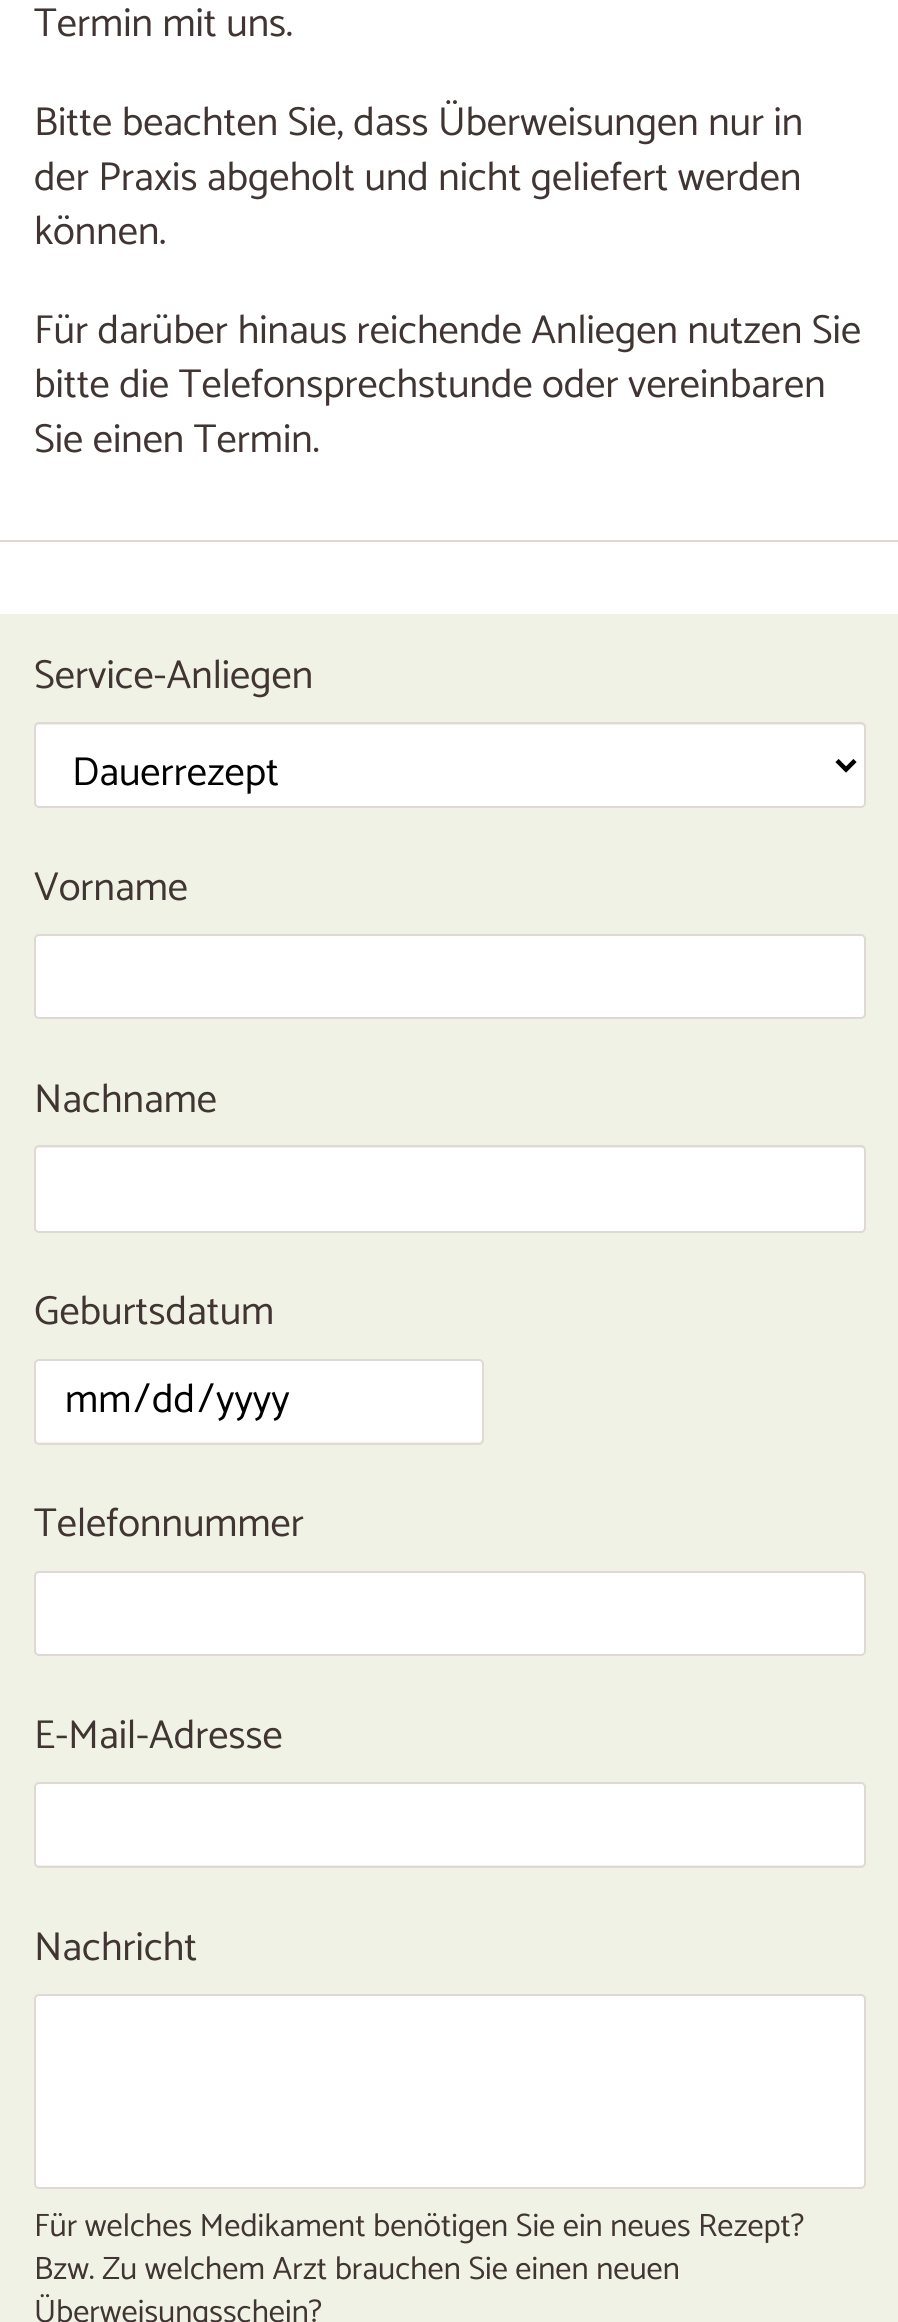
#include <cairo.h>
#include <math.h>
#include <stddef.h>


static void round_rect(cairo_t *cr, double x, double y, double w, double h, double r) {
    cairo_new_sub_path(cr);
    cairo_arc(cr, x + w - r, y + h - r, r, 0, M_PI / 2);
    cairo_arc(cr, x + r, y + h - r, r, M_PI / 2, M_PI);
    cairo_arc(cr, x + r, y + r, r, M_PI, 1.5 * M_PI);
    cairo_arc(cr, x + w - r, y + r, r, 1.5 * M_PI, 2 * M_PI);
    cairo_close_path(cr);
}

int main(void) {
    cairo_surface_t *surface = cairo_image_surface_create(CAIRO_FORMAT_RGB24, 898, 2322);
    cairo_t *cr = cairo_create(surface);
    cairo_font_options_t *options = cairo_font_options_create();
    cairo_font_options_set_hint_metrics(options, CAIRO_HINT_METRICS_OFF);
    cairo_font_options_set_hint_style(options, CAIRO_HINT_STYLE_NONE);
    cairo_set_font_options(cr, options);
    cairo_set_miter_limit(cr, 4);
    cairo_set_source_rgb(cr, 1, 1, 1);
    cairo_paint(cr);
    cairo_set_source_rgb(cr, 0.878, 0.847, 0.835);
    cairo_rectangle(cr, 0, 540, 898, 2);
    cairo_fill(cr);
    cairo_select_font_face(cr, "Catamaran Thin", CAIRO_FONT_SLANT_NORMAL, CAIRO_FONT_WEIGHT_NORMAL);
    cairo_set_font_size(cr, 40.5);
    cairo_set_source_rgb(cr, 0.251, 0.208, 0.196);
    cairo_move_to(cr, 34, 36);
    cairo_show_text(cr, "Termin mit uns.");
    cairo_move_to(cr, 34, 135);
    cairo_show_text(cr, "Bitte beachten Sie, dass Überweisungen nur in");
    cairo_move_to(cr, 34, 190);
    cairo_show_text(cr, "der Praxis abgeholt und nicht geliefert werden");
    cairo_move_to(cr, 34, 244);
    cairo_show_text(cr, "können.");
    cairo_move_to(cr, 34, 343);
    cairo_show_text(cr, "Für darüber hinaus reichende Anliegen nutzen Sie");
    cairo_move_to(cr, 34, 397);
    cairo_show_text(cr, "bitte die Telefonsprechstunde oder vereinbaren");
    cairo_move_to(cr, 34, 452);
    cairo_show_text(cr, "Sie einen Termin.");
    cairo_set_source_rgb(cr, 0.941, 0.949, 0.902);
    cairo_rectangle(cr, 0, 614, 898, 1708);
    cairo_fill(cr);
    cairo_set_source_rgb(cr, 0.251, 0.208, 0.196);
    cairo_move_to(cr, 34, 688);
    cairo_show_text(cr, "Service-Anliegen");
    cairo_set_source_rgb(cr, 1, 1, 1);
    round_rect(cr, 36, 725, 828, 81, 2);
    cairo_fill(cr);
    round_rect(cr, 35, 723, 830, 84, 4);
    cairo_set_source_rgb(cr, 0.878, 0.847, 0.835);
    cairo_stroke(cr);
    cairo_new_path(cr);
    cairo_move_to(cr, 837, 760.5);
    cairo_line_to(cr, 846, 769.5);
    cairo_line_to(cr, 855, 760.5);
    cairo_set_source_rgb(cr, 0, 0, 0);
    cairo_set_line_width(cr, 4.5);
    cairo_stroke(cr);
    cairo_move_to(cr, 72, 785);
    cairo_show_text(cr, "Dauerrezept");
    cairo_set_source_rgb(cr, 0.251, 0.208, 0.196);
    cairo_move_to(cr, 34, 900);
    cairo_show_text(cr, "Vorname");
    cairo_set_source_rgb(cr, 1, 1, 1);
    round_rect(cr, 36, 936, 828, 81, 2);
    cairo_fill(cr);
    round_rect(cr, 35, 935, 830, 83, 4);
    cairo_set_source_rgb(cr, 0.878, 0.847, 0.835);
    cairo_set_line_width(cr, 2);
    cairo_stroke(cr);
    cairo_set_source_rgb(cr, 0.251, 0.208, 0.196);
    cairo_move_to(cr, 34, 1112);
    cairo_show_text(cr, "Nachname");
    cairo_set_source_rgb(cr, 1, 1, 1);
    round_rect(cr, 36, 1148, 828, 83, 2);
    cairo_fill(cr);
    round_rect(cr, 35, 1146, 830, 86, 4);
    cairo_set_source_rgb(cr, 0.878, 0.847, 0.835);
    cairo_stroke(cr);
    cairo_set_source_rgb(cr, 0.251, 0.208, 0.196);
    cairo_move_to(cr, 34, 1324);
    cairo_show_text(cr, "Geburtsdatum");
    cairo_set_source_rgb(cr, 1, 1, 1);
    round_rect(cr, 36, 1361, 446, 81, 2);
    cairo_fill(cr);
    round_rect(cr, 35, 1360, 448, 84, 4);
    cairo_set_source_rgb(cr, 0.878, 0.847, 0.835);
    cairo_stroke(cr);
    cairo_set_source_rgb(cr, 0, 0, 0);
    cairo_move_to(cr, 65, 1412);
    cairo_show_text(cr, "mm");
    cairo_move_to(cr, 134, 1412);
    cairo_show_text(cr, "/");
    cairo_move_to(cr, 152, 1412);
    cairo_show_text(cr, "dd");
    cairo_move_to(cr, 198, 1412);
    cairo_show_text(cr, "/");
    cairo_move_to(cr, 216, 1412);
    cairo_show_text(cr, "yyyy");
    cairo_set_source_rgb(cr, 0.251, 0.208, 0.196);
    cairo_move_to(cr, 34, 1536);
    cairo_show_text(cr, "Telefonnummer");
    cairo_set_source_rgb(cr, 1, 1, 1);
    round_rect(cr, 36, 1573, 828, 81, 2);
    cairo_fill(cr);
    round_rect(cr, 35, 1572, 830, 83, 4);
    cairo_set_source_rgb(cr, 0.878, 0.847, 0.835);
    cairo_stroke(cr);
    cairo_set_source_rgb(cr, 0.251, 0.208, 0.196);
    cairo_move_to(cr, 34, 1748);
    cairo_show_text(cr, "E-Mail-Adresse");
    cairo_set_source_rgb(cr, 1, 1, 1);
    round_rect(cr, 36, 1784, 828, 81, 2);
    cairo_fill(cr);
    round_rect(cr, 35, 1783, 830, 84, 4);
    cairo_set_source_rgb(cr, 0.878, 0.847, 0.835);
    cairo_stroke(cr);
    cairo_set_source_rgb(cr, 0.251, 0.208, 0.196);
    cairo_move_to(cr, 34, 1960);
    cairo_show_text(cr, "Nachricht");
    cairo_set_source_rgb(cr, 1, 1, 1);
    round_rect(cr, 36, 1996, 828, 191, 2);
    cairo_fill(cr);
    round_rect(cr, 35, 1995, 830, 193, 4);
    cairo_set_source_rgb(cr, 0.878, 0.847, 0.835);
    cairo_stroke(cr);
    cairo_set_font_size(cr, 32.4);
    cairo_set_source_rgb(cr, 0.251, 0.208, 0.196);
    cairo_move_to(cr, 34, 2236);
    cairo_show_text(cr, "Für welches Medikament benötigen Sie ein neues Rezept?");
    cairo_move_to(cr, 34, 2279);
    cairo_show_text(cr, "Bzw. Zu welchem Arzt brauchen Sie einen neuen");
    cairo_move_to(cr, 34, 2322);
    cairo_show_text(cr, "Überweisungsschein?");
    cairo_surface_write_to_png(surface, "page.png");
    cairo_font_options_destroy(options);
    cairo_destroy(cr);
    cairo_surface_destroy(surface);
    return 0;
}
